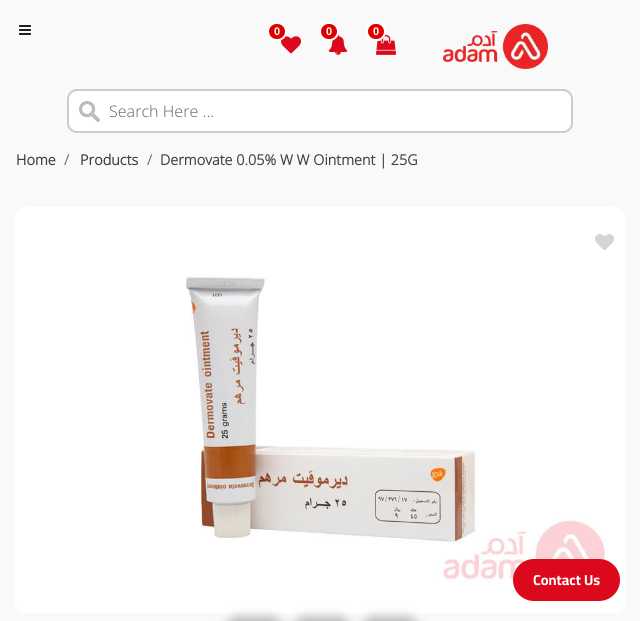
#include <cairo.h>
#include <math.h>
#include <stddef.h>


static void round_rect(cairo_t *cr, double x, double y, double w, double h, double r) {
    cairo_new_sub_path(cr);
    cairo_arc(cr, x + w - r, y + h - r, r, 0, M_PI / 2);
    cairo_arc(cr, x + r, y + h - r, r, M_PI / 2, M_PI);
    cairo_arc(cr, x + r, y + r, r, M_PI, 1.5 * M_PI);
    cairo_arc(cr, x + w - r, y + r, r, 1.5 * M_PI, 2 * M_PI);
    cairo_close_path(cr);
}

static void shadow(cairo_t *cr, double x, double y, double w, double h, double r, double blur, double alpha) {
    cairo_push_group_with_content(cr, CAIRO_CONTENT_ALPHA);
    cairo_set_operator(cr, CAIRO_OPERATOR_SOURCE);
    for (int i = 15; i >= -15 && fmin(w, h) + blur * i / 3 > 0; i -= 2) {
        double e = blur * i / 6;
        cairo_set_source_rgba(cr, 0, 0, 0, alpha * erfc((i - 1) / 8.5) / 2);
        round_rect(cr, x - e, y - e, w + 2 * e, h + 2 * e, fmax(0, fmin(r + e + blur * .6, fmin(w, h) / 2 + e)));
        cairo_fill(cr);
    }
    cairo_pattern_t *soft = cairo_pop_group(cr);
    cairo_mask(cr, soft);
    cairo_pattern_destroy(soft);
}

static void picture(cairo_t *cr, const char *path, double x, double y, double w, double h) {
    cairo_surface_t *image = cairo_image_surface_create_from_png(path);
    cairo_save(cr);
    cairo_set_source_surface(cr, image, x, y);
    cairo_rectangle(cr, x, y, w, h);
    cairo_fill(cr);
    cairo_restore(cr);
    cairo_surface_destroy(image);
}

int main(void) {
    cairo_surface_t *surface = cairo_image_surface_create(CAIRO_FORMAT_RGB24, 640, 621);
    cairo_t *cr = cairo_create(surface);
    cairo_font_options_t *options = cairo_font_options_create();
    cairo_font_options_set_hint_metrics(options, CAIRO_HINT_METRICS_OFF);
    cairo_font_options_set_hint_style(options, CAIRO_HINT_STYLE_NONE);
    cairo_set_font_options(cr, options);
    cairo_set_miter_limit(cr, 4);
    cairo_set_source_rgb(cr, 0.976, 0.976, 0.976);
    cairo_paint(cr);
    picture(cr, "img1.png", 281, 36, 20, 18);
    cairo_set_source_rgb(cr, 0.867, 0, 0);
    round_rect(cr, 268, 23, 18, 17, 8.5);
    cairo_fill_preserve(cr);
    cairo_set_source_rgb(cr, 1, 1, 1);
    cairo_stroke(cr);
    cairo_select_font_face(cr, "Liberation Sans", CAIRO_FONT_SLANT_NORMAL, CAIRO_FONT_WEIGHT_BOLD);
    cairo_set_font_size(cr, 11);
    cairo_move_to(cr, 274, 35);
    cairo_show_text(cr, "0");
    picture(cr, "img2.png", 328, 34, 20, 21);
    cairo_set_source_rgb(cr, 0.867, 0, 0);
    round_rect(cr, 320, 23, 18, 17, 8.5);
    cairo_fill_preserve(cr);
    cairo_set_source_rgb(cr, 1, 1, 1);
    cairo_stroke(cr);
    cairo_move_to(cr, 326, 35);
    cairo_show_text(cr, "0");
    picture(cr, "img3.png", 376, 34, 20, 21);
    cairo_set_source_rgb(cr, 0.867, 0, 0);
    round_rect(cr, 367, 23, 18, 17, 8.5);
    cairo_fill_preserve(cr);
    cairo_set_source_rgb(cr, 1, 1, 1);
    cairo_stroke(cr);
    cairo_move_to(cr, 373, 35);
    cairo_show_text(cr, "0");
    picture(cr, "img4.png", 443, 24, 105, 45);
    round_rect(cr, 69, 91, 502, 40, 8);
    cairo_fill(cr);
    picture(cr, "img5.png", 79, 101, 21, 21);
    round_rect(cr, 68, 90, 504, 42, 9);
    cairo_set_source_rgb(cr, 0.8, 0.8, 0.8);
    cairo_stroke(cr);
    cairo_select_font_face(cr, "Noto Sans Light", CAIRO_FONT_SLANT_NORMAL, CAIRO_FONT_WEIGHT_NORMAL);
    cairo_set_font_size(cr, 16);
    cairo_set_source_rgb(cr, 0.424, 0.459, 0.49);
    cairo_move_to(cr, 109, 117);
    cairo_show_text(cr, "Search Here ...");
    picture(cr, "img6.png", 19, 25, 12, 10);
    cairo_select_font_face(cr, "Noto Sans", CAIRO_FONT_SLANT_NORMAL, CAIRO_FONT_WEIGHT_BOLD);
    cairo_set_font_size(cr, 14.4);
    cairo_set_source_rgb(cr, 0.227, 0.227, 0.227);
    cairo_move_to(cr, 16, 165);
    cairo_show_text(cr, "Home");
    cairo_set_source_rgb(cr, 0.424, 0.459, 0.49);
    cairo_move_to(cr, 64, 165);
    cairo_show_text(cr, "/");
    cairo_set_source_rgb(cr, 0.227, 0.227, 0.227);
    cairo_move_to(cr, 80, 165);
    cairo_show_text(cr, "Products");
    cairo_set_source_rgb(cr, 0.424, 0.459, 0.49);
    cairo_move_to(cr, 147, 165);
    cairo_show_text(cr, "/");
    cairo_set_source_rgb(cr, 0.255, 0.255, 0.255);
    cairo_move_to(cr, 160, 165);
    cairo_show_text(cr, "Dermovate 0.05% W W Ointment | 25G");
    picture(cr, "img7.png", 15, 207, 610, 406);
    picture(cr, "img8.png", 595, 234, 19, 17);
    cairo_set_source_rgb(cr, 0.722, 0.722, 0.722);
    shadow(cr, 224, 617, 60, 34, 15, 5, 1);
    shadow(cr, 292, 617, 60, 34, 15, 5, 1);
    shadow(cr, 360, 617, 60, 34, 15, 5, 1);
    cairo_set_source_rgb(cr, 0.863, 0.035, 0.106);
    round_rect(cr, 513, 559, 107, 42, 21);
    cairo_fill(cr);
    cairo_select_font_face(cr, "Cairo", CAIRO_FONT_SLANT_NORMAL, CAIRO_FONT_WEIGHT_BOLD);
    cairo_set_source_rgb(cr, 1, 1, 1);
    cairo_move_to(cr, 533, 585);
    cairo_show_text(cr, "Contact Us");
    cairo_surface_write_to_png(surface, "page.png");
    cairo_font_options_destroy(options);
    cairo_destroy(cr);
    cairo_surface_destroy(surface);
    return 0;
}
